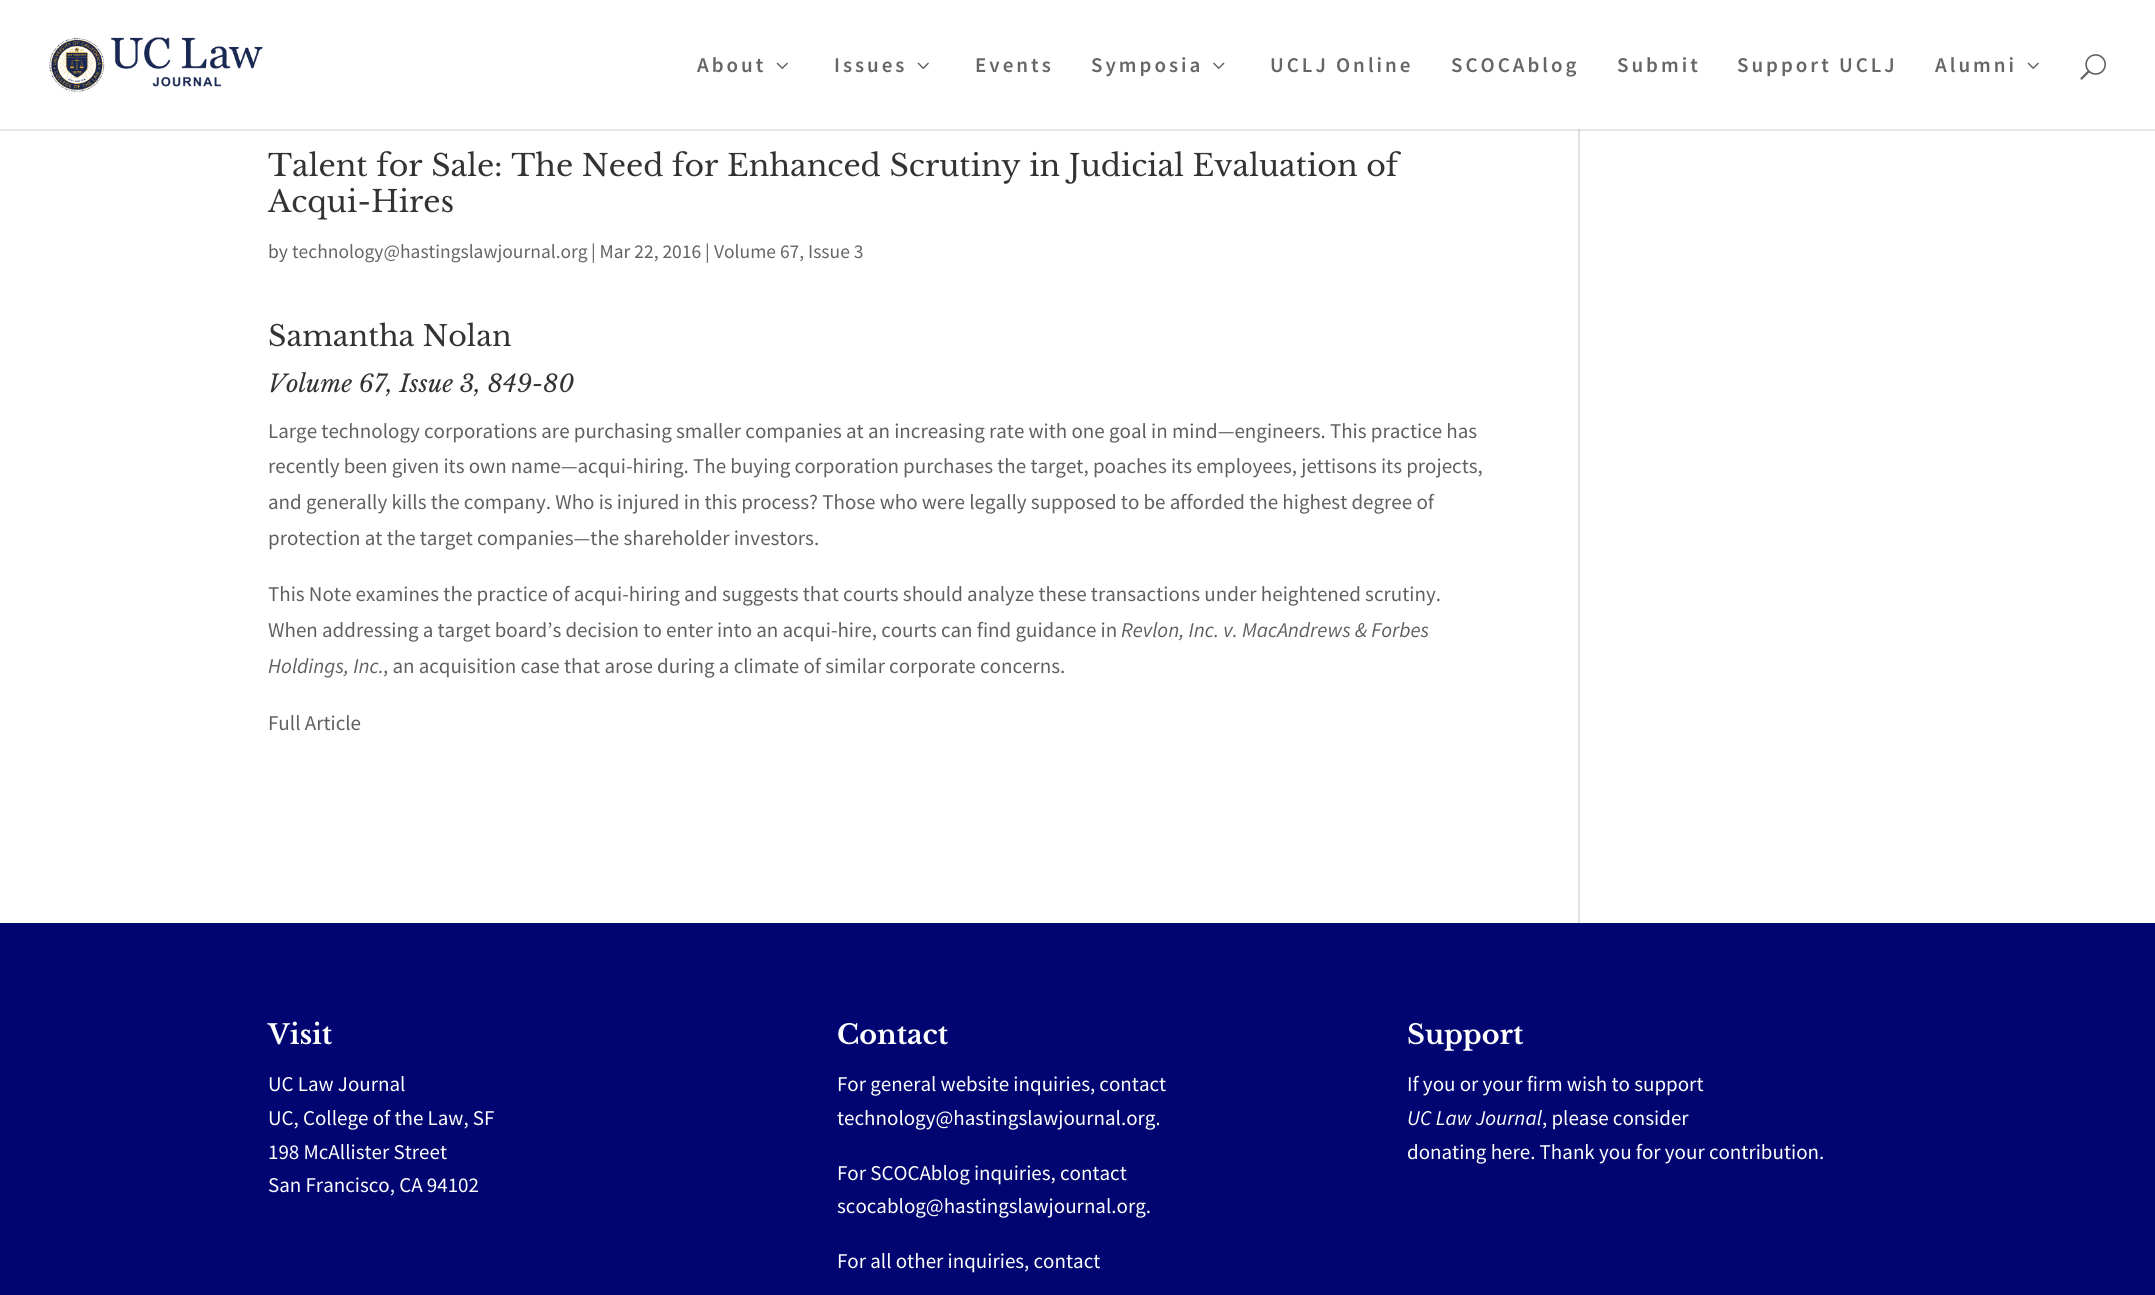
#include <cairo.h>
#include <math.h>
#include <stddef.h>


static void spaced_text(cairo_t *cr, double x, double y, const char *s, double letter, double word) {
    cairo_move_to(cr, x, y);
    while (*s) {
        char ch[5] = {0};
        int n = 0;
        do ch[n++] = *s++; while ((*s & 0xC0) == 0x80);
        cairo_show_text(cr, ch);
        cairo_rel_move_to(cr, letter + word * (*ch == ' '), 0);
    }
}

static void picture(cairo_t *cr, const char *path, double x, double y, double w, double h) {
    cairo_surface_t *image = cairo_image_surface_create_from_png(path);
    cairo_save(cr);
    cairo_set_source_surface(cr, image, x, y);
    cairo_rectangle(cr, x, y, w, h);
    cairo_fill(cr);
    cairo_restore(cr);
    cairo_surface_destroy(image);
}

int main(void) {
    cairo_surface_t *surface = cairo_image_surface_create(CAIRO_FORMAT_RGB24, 2155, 1295);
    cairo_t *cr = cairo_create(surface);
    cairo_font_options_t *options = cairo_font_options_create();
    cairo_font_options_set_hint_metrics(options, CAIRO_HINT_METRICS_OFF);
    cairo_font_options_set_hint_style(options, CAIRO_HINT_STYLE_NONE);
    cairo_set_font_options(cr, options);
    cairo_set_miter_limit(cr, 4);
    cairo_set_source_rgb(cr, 1, 1, 1);
    cairo_paint(cr);
    cairo_set_source_rgb(cr, 0.886, 0.886, 0.886);
    cairo_rectangle(cr, 1578, 129, 2, 794);
    cairo_fill(cr);
    cairo_set_source_rgba(cr, 0, 0, 0, 0.1);
    cairo_new_path(cr);
    cairo_move_to(cr, 0, 129);
    cairo_line_to(cr, 0, 131);
    cairo_line_to(cr, 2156, 131);
    cairo_line_to(cr, 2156, 2);
    cairo_line_to(cr, 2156, 129);
    cairo_close_path(cr);
    cairo_fill(cr);
    picture(cr, "img1.png", 49, 37, 214, 55);
    cairo_select_font_face(cr, "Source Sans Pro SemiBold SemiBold", CAIRO_FONT_SLANT_NORMAL, CAIRO_FONT_WEIGHT_NORMAL);
    cairo_set_font_size(cr, 21);
    cairo_set_source_rgb(cr, 0.4, 0.4, 0.4);
    spaced_text(cr, 697, 72, "About", 3, 0);
    picture(cr, "img2.png", 776, 62, 12, 7);
    spaced_text(cr, 834, 72, "Issues", 3, 0);
    picture(cr, "img2.png", 917, 62, 12, 7);
    spaced_text(cr, 975, 72, "Events", 3, 0);
    spaced_text(cr, 1091, 72, "Symposia", 3, 0);
    picture(cr, "img3.png", 1213, 62, 12, 7);
    spaced_text(cr, 1270, 72, "UCLJ Online", 3, 0);
    spaced_text(cr, 1451, 72, "SCOCAblog", 3, 0);
    spaced_text(cr, 1617, 72, "Submit", 3, 0);
    spaced_text(cr, 1737, 72, "Support UCLJ", 3, 0);
    spaced_text(cr, 1935, 72, "Alumni", 3, 0);
    picture(cr, "img2.png", 2027, 62, 12, 7);
    picture(cr, "img4.png", 2080, 54, 26, 26);
    cairo_select_font_face(cr, "Libre Baskerville", CAIRO_FONT_SLANT_NORMAL, CAIRO_FONT_WEIGHT_NORMAL);
    cairo_set_font_size(cr, 30);
    cairo_set_source_rgb(cr, 0.2, 0.2, 0.2);
    cairo_move_to(cr, 268, 176);
    cairo_show_text(cr, "Talent for Sale: The Need for Enhanced Scrutiny in Judicial Evaluation of");
    cairo_move_to(cr, 268, 212);
    cairo_show_text(cr, "Acqui-Hires");
    cairo_select_font_face(cr, "Source Sans Pro", CAIRO_FONT_SLANT_NORMAL, CAIRO_FONT_WEIGHT_NORMAL);
    cairo_set_font_size(cr, 19.5);
    cairo_set_source_rgb(cr, 0.376, 0.376, 0.376);
    cairo_move_to(cr, 268, 258);
    cairo_show_text(cr, "by");
    cairo_set_source_rgb(cr, 0.4, 0.4, 0.4);
    cairo_move_to(cr, 292, 258);
    cairo_show_text(cr, "technology@hastingslawjournal.org");
    cairo_set_source_rgb(cr, 0.376, 0.376, 0.376);
    cairo_move_to(cr, 591, 258);
    cairo_show_text(cr, "| Mar 22, 2016 |");
    cairo_set_source_rgb(cr, 0.4, 0.4, 0.4);
    cairo_move_to(cr, 714, 258);
    cairo_show_text(cr, "Volume 67, Issue 3");
    cairo_select_font_face(cr, "Libre Baskerville", CAIRO_FONT_SLANT_NORMAL, CAIRO_FONT_WEIGHT_NORMAL);
    cairo_set_font_size(cr, 28.5);
    cairo_set_source_rgb(cr, 0.2, 0.2, 0.2);
    cairo_move_to(cr, 268, 346);
    cairo_show_text(cr, "Samantha Nolan");
    cairo_select_font_face(cr, "Libre Baskerville", CAIRO_FONT_SLANT_ITALIC, CAIRO_FONT_WEIGHT_NORMAL);
    cairo_set_font_size(cr, 24);
    cairo_move_to(cr, 268, 392);
    cairo_show_text(cr, "Volume 67, Issue 3, 849-80");
    cairo_select_font_face(cr, "Source Sans Pro", CAIRO_FONT_SLANT_NORMAL, CAIRO_FONT_WEIGHT_NORMAL);
    cairo_set_font_size(cr, 21);
    cairo_set_source_rgb(cr, 0.376, 0.376, 0.376);
    cairo_move_to(cr, 268, 438);
    cairo_show_text(cr, "Large technology corporations are purchasing smaller companies at an increasing rate with one goal in mind—engineers. This practice has");
    cairo_move_to(cr, 268, 473);
    cairo_show_text(cr, "recently been given its own name—acqui-hiring. The buying corporation purchases the target, poaches its employees, jettisons its projects,");
    cairo_move_to(cr, 268, 509);
    cairo_show_text(cr, "and generally kills the company. Who is injured in this process? Those who were legally supposed to be afforded the highest degree of");
    cairo_move_to(cr, 268, 545);
    cairo_show_text(cr, "protection at the target companies—the shareholder investors.");
    cairo_move_to(cr, 268, 601);
    cairo_show_text(cr, "This Note examines the practice of acqui-hiring and suggests that courts should analyze these transactions under heightened scrutiny.");
    cairo_move_to(cr, 268, 637);
    cairo_show_text(cr, "When addressing a target board’s decision to enter into an acqui-hire, courts can find guidance in");
    cairo_select_font_face(cr, "Source Sans Pro", CAIRO_FONT_SLANT_ITALIC, CAIRO_FONT_WEIGHT_NORMAL);
    cairo_move_to(cr, 1121, 637);
    cairo_show_text(cr, "Revlon, Inc. v. MacAndrews & Forbes");
    cairo_move_to(cr, 268, 673);
    cairo_show_text(cr, "Holdings, Inc.");
    cairo_select_font_face(cr, "Source Sans Pro", CAIRO_FONT_SLANT_NORMAL, CAIRO_FONT_WEIGHT_NORMAL);
    cairo_move_to(cr, 383, 673);
    cairo_show_text(cr, ", an acquisition case that arose during a climate of similar corporate concerns.");
    cairo_move_to(cr, 268, 730);
    cairo_show_text(cr, "Full Article");
    cairo_set_source_rgb(cr, 0, 0.02, 0.447);
    cairo_rectangle(cr, 0, 923, 2155, 372);
    cairo_fill(cr);
    cairo_select_font_face(cr, "Libre Baskerville", CAIRO_FONT_SLANT_NORMAL, CAIRO_FONT_WEIGHT_BOLD);
    cairo_set_font_size(cr, 27);
    cairo_set_source_rgb(cr, 1, 1, 1);
    cairo_move_to(cr, 268, 1044);
    cairo_show_text(cr, "Visit");
    cairo_select_font_face(cr, "Source Sans Pro", CAIRO_FONT_SLANT_NORMAL, CAIRO_FONT_WEIGHT_NORMAL);
    cairo_set_font_size(cr, 21);
    cairo_move_to(cr, 268, 1091);
    cairo_show_text(cr, "UC Law Journal");
    cairo_move_to(cr, 268, 1125);
    cairo_show_text(cr, "UC, College of the Law, SF");
    cairo_move_to(cr, 268, 1159);
    cairo_show_text(cr, "198 McAllister Street");
    cairo_move_to(cr, 268, 1192);
    cairo_show_text(cr, "San Francisco, CA 94102");
    cairo_select_font_face(cr, "Libre Baskerville", CAIRO_FONT_SLANT_NORMAL, CAIRO_FONT_WEIGHT_BOLD);
    cairo_set_font_size(cr, 27);
    cairo_move_to(cr, 837, 1044);
    cairo_show_text(cr, "Contact");
    cairo_select_font_face(cr, "Source Sans Pro", CAIRO_FONT_SLANT_NORMAL, CAIRO_FONT_WEIGHT_NORMAL);
    cairo_set_font_size(cr, 21);
    cairo_move_to(cr, 837, 1091);
    cairo_show_text(cr, "For general website inquiries, contact");
    cairo_move_to(cr, 837, 1125);
    cairo_show_text(cr, "technology@hastingslawjournal.org.");
    cairo_move_to(cr, 837, 1180);
    cairo_show_text(cr, "For SCOCAblog inquiries, contact");
    cairo_move_to(cr, 837, 1213);
    cairo_show_text(cr, "scocablog@hastingslawjournal.org.");
    cairo_move_to(cr, 837, 1268);
    cairo_show_text(cr, "For all other inquiries, contact");
    cairo_select_font_face(cr, "Libre Baskerville", CAIRO_FONT_SLANT_NORMAL, CAIRO_FONT_WEIGHT_BOLD);
    cairo_set_font_size(cr, 27);
    cairo_move_to(cr, 1407, 1044);
    cairo_show_text(cr, "Support");
    cairo_select_font_face(cr, "Source Sans Pro", CAIRO_FONT_SLANT_NORMAL, CAIRO_FONT_WEIGHT_NORMAL);
    cairo_set_font_size(cr, 21);
    cairo_move_to(cr, 1407, 1091);
    cairo_show_text(cr, "If you or your firm wish to support");
    cairo_select_font_face(cr, "Source Sans Pro", CAIRO_FONT_SLANT_ITALIC, CAIRO_FONT_WEIGHT_NORMAL);
    cairo_move_to(cr, 1407, 1125);
    cairo_show_text(cr, "UC Law Journal");
    cairo_select_font_face(cr, "Source Sans Pro", CAIRO_FONT_SLANT_NORMAL, CAIRO_FONT_WEIGHT_NORMAL);
    cairo_move_to(cr, 1542, 1125);
    cairo_show_text(cr, ", please consider");
    cairo_move_to(cr, 1407, 1159);
    cairo_show_text(cr, "donating here. Thank you for your contribution.");
    cairo_surface_write_to_png(surface, "page.png");
    cairo_font_options_destroy(options);
    cairo_destroy(cr);
    cairo_surface_destroy(surface);
    return 0;
}
